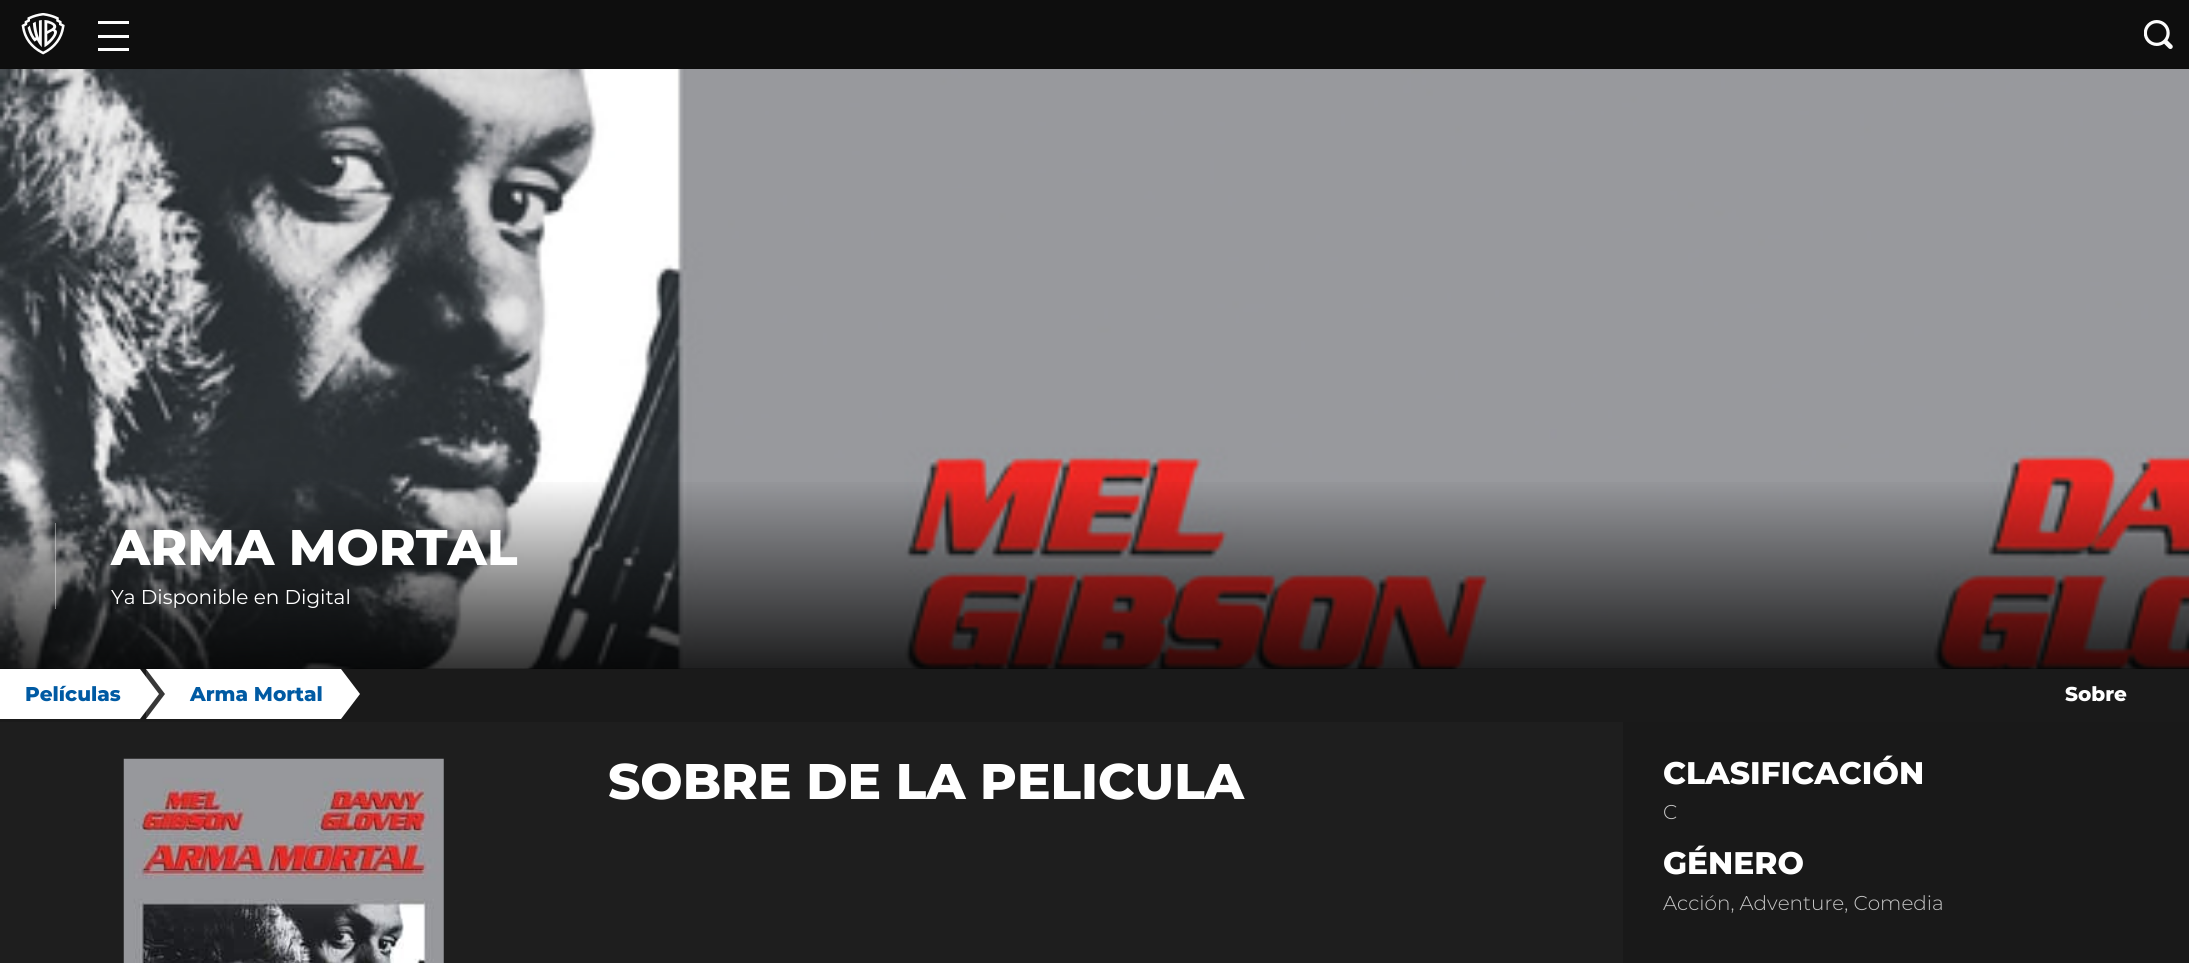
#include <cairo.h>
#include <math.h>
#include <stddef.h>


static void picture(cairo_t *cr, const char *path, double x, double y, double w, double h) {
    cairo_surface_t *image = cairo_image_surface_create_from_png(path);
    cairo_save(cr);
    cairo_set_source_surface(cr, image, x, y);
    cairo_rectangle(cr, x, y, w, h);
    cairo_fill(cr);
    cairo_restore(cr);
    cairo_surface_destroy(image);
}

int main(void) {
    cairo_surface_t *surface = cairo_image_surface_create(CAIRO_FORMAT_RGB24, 2189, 963);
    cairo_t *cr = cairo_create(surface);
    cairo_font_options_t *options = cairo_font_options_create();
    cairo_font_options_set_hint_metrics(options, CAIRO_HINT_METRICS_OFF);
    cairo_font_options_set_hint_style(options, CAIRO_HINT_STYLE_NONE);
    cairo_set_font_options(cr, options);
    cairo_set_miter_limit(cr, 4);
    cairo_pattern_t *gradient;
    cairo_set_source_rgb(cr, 0.055, 0.055, 0.055);
    cairo_paint(cr);
    picture(cr, "img3.png", 0, 68, 2189, 601);
    cairo_set_source_rgba(cr, 0.055, 0.055, 0.055, 0.99);
    cairo_rectangle(cr, 0, 68, 2189, 1);
    cairo_fill(cr);
    picture(cr, "img1.png", 21, 13, 44, 42);
    cairo_set_source_rgb(cr, 0.992, 0.992, 0.992);
    cairo_rectangle(cr, 98, 21, 31, 3);
    cairo_fill(cr);
    cairo_rectangle(cr, 98, 35, 31, 3);
    cairo_fill(cr);
    cairo_rectangle(cr, 98, 48, 31, 3);
    cairo_fill(cr);
    picture(cr, "img2.png", 2144, 20, 29, 29);
    gradient = cairo_pattern_create_linear(1095, 477, 1095, 669);
    cairo_pattern_add_color_stop_rgba(gradient, 0, 0, 0, 0, 0);
    cairo_pattern_add_color_stop_rgba(gradient, 1, 0, 0, 0, 0.8);
    cairo_set_source(cr, gradient);
    cairo_pattern_destroy(gradient);
    cairo_rectangle(cr, 0, 482, 2189, 187);
    cairo_fill(cr);
    cairo_set_source_rgba(cr, 1, 1, 1, 0.4);
    cairo_rectangle(cr, 55, 523, 1, 86);
    cairo_fill(cr);
    cairo_select_font_face(cr, "Montserrat ExtraBold", CAIRO_FONT_SLANT_NORMAL, CAIRO_FONT_WEIGHT_NORMAL);
    cairo_set_font_size(cr, 50);
    cairo_set_source_rgb(cr, 1, 1, 1);
    cairo_move_to(cr, 111, 565);
    cairo_show_text(cr, "ARMA MORTAL");
    cairo_select_font_face(cr, "Montserrat", CAIRO_FONT_SLANT_NORMAL, CAIRO_FONT_WEIGHT_NORMAL);
    cairo_set_font_size(cr, 20);
    cairo_move_to(cr, 111, 604);
    cairo_show_text(cr, "Ya Disponible en Digital");
    cairo_set_source_rgb(cr, 0.102, 0.102, 0.102);
    cairo_rectangle(cr, 140, 669, 2049, 50);
    cairo_fill(cr);
    cairo_rectangle(cr, 0, 719, 2189, 3);
    cairo_fill(cr);
    cairo_set_source_rgb(cr, 1, 1, 1);
    cairo_rectangle(cr, 0, 669, 140, 50);
    cairo_fill(cr);
    cairo_select_font_face(cr, "Montserrat ExtraBold", CAIRO_FONT_SLANT_NORMAL, CAIRO_FONT_WEIGHT_NORMAL);
    cairo_set_source_rgb(cr, 0, 0.353, 0.639);
    cairo_move_to(cr, 25, 701);
    cairo_show_text(cr, "Películas");
    cairo_set_source_rgb(cr, 1, 1, 1);
    cairo_rectangle(cr, 146, 669, 195, 50);
    cairo_fill(cr);
    cairo_set_source_rgb(cr, 0.216, 0.216, 0.216);
    cairo_new_path(cr);
    cairo_move_to(cr, 146, 719);
    cairo_line_to(cr, 146, 669);
    cairo_line_to(cr, 165, 694);
    cairo_close_path(cr);
    cairo_fill(cr);
    cairo_set_source_rgb(cr, 1, 1, 1);
    cairo_new_path(cr);
    cairo_move_to(cr, 140, 719);
    cairo_line_to(cr, 140, 669);
    cairo_line_to(cr, 159, 694);
    cairo_close_path(cr);
    cairo_fill(cr);
    cairo_set_source_rgb(cr, 0, 0.353, 0.639);
    cairo_move_to(cr, 190, 701);
    cairo_show_text(cr, "Arma Mortal");
    cairo_set_source_rgb(cr, 1, 1, 1);
    cairo_new_path(cr);
    cairo_move_to(cr, 341, 719);
    cairo_line_to(cr, 341, 669);
    cairo_line_to(cr, 360, 694);
    cairo_close_path(cr);
    cairo_fill(cr);
    cairo_move_to(cr, 2065, 701);
    cairo_show_text(cr, "Sobre");
    cairo_set_source_rgb(cr, 0.118, 0.118, 0.118);
    cairo_rectangle(cr, 0, 722, 1623, 241);
    cairo_fill(cr);
    picture(cr, "img4.png", 123, 758, 321, 205);
    cairo_set_font_size(cr, 50);
    cairo_set_source_rgb(cr, 1, 1, 1);
    cairo_move_to(cr, 608, 799);
    cairo_show_text(cr, "SOBRE DE LA PELICULA");
    cairo_set_source_rgb(cr, 0.098, 0.098, 0.098);
    cairo_rectangle(cr, 1623, 722, 566, 241);
    cairo_fill(cr);
    cairo_set_font_size(cr, 31.25);
    cairo_set_source_rgb(cr, 1, 1, 1);
    cairo_move_to(cr, 1663, 784);
    cairo_show_text(cr, "CLASIFICACIÓN");
    cairo_select_font_face(cr, "Montserrat Light", CAIRO_FONT_SLANT_NORMAL, CAIRO_FONT_WEIGHT_NORMAL);
    cairo_set_font_size(cr, 20);
    cairo_set_source_rgb(cr, 0.776, 0.776, 0.776);
    cairo_move_to(cr, 1663, 819);
    cairo_show_text(cr, "C");
    cairo_select_font_face(cr, "Montserrat ExtraBold", CAIRO_FONT_SLANT_NORMAL, CAIRO_FONT_WEIGHT_NORMAL);
    cairo_set_font_size(cr, 31.25);
    cairo_set_source_rgb(cr, 1, 1, 1);
    cairo_move_to(cr, 1663, 874);
    cairo_show_text(cr, "GÉNERO");
    cairo_select_font_face(cr, "Montserrat Light", CAIRO_FONT_SLANT_NORMAL, CAIRO_FONT_WEIGHT_NORMAL);
    cairo_set_font_size(cr, 20);
    cairo_set_source_rgb(cr, 0.776, 0.776, 0.776);
    cairo_move_to(cr, 1663, 910);
    cairo_show_text(cr, "Acción, Adventure, Comedia");
    cairo_surface_write_to_png(surface, "page.png");
    cairo_font_options_destroy(options);
    cairo_destroy(cr);
    cairo_surface_destroy(surface);
    return 0;
}
